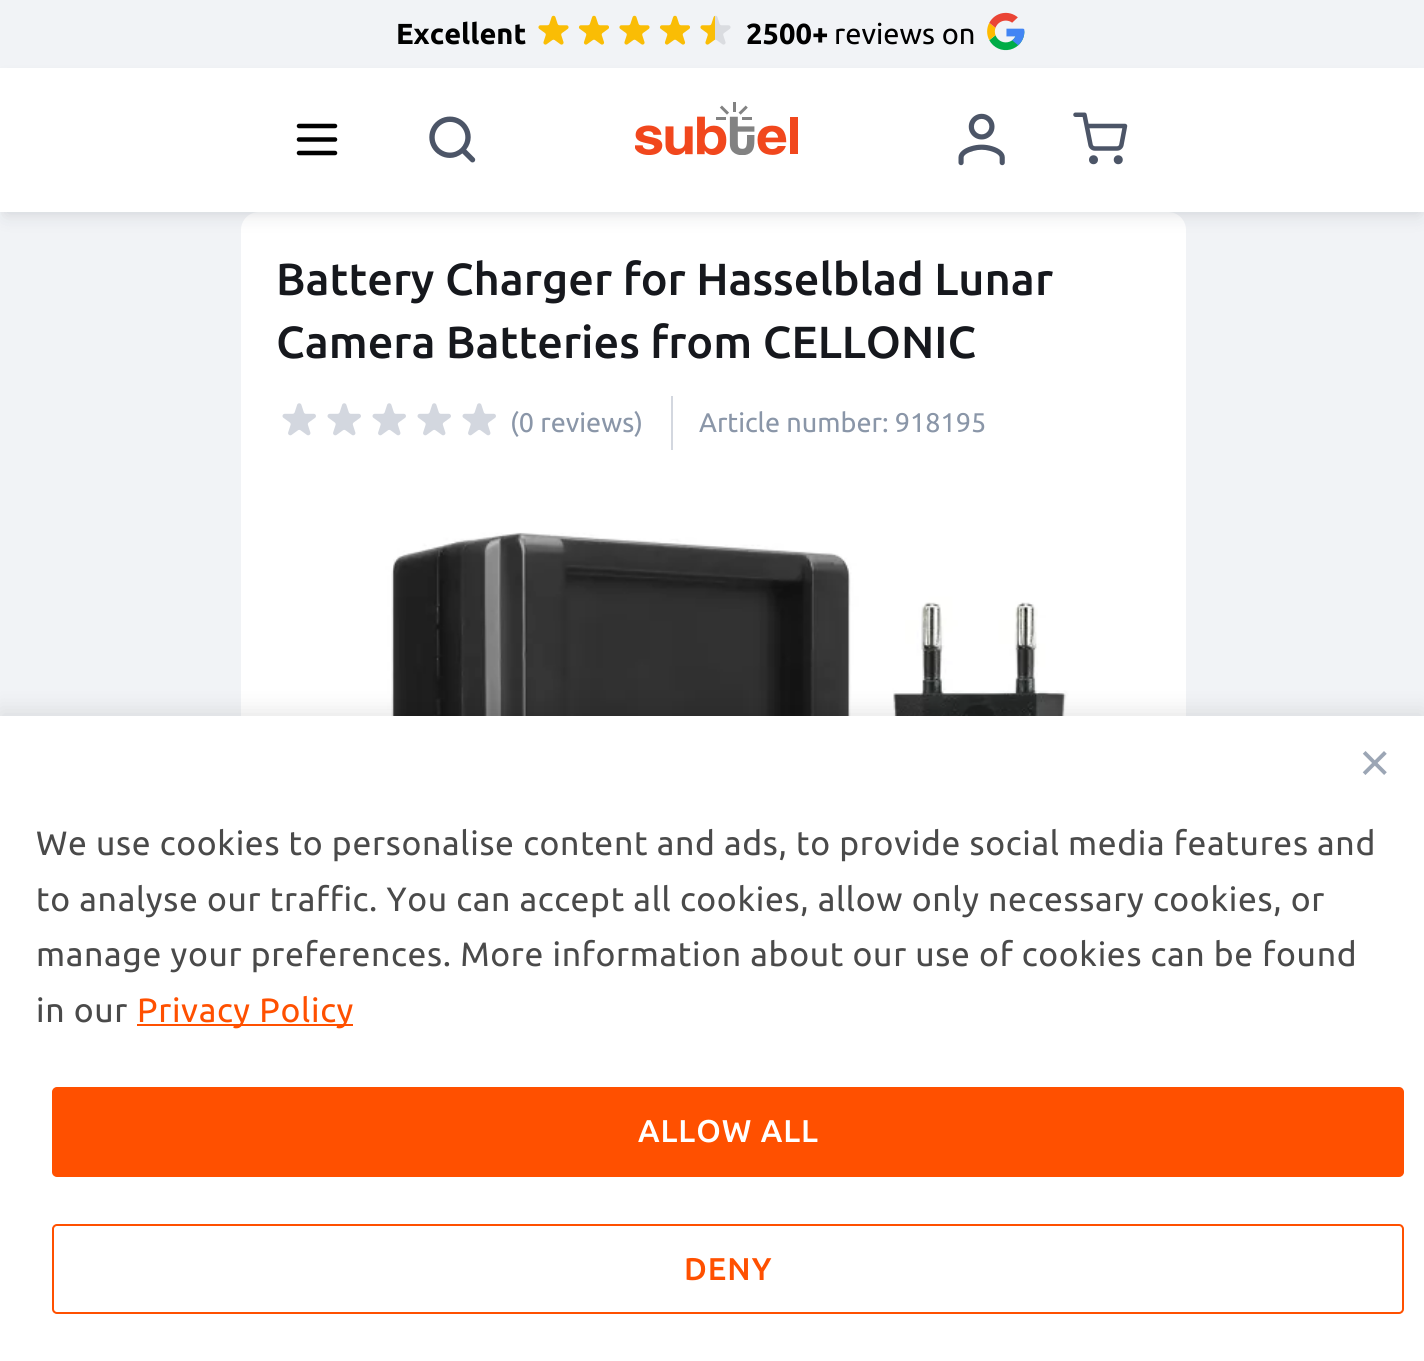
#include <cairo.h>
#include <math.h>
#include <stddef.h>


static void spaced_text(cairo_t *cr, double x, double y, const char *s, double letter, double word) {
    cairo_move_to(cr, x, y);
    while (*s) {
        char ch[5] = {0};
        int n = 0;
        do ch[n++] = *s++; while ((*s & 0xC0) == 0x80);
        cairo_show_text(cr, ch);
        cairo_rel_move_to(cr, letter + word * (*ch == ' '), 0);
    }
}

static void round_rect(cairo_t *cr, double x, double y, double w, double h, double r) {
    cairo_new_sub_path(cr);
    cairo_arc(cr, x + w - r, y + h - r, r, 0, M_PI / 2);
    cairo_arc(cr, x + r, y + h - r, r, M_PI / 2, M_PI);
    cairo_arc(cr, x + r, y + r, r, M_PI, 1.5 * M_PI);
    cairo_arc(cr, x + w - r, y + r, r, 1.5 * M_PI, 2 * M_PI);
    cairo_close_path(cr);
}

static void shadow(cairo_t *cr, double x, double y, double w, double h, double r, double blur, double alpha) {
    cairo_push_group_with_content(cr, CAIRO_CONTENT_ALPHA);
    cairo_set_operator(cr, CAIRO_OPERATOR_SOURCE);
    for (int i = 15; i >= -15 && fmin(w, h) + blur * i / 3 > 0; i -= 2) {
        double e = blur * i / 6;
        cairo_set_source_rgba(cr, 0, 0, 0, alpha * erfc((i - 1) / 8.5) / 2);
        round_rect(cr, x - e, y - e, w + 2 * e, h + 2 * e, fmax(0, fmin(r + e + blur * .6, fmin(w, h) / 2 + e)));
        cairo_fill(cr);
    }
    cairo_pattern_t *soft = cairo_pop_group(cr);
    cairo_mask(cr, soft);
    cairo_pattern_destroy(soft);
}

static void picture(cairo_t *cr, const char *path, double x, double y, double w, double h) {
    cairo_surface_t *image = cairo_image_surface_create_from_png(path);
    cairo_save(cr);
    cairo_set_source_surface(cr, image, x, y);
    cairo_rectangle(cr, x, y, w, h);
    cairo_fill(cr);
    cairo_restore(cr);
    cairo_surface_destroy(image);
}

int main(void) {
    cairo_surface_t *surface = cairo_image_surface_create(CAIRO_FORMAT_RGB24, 1424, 1361);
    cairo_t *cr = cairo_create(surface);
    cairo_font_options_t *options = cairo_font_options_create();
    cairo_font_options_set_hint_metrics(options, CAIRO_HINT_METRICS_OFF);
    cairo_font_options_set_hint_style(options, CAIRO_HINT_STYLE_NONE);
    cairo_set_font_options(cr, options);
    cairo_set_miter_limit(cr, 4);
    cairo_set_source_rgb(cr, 0.945, 0.953, 0.961);
    cairo_paint(cr);
    cairo_select_font_face(cr, "Ubuntu", CAIRO_FONT_SLANT_NORMAL, CAIRO_FONT_WEIGHT_BOLD);
    cairo_set_font_size(cr, 29);
    cairo_set_source_rgb(cr, 0, 0, 0);
    cairo_move_to(cr, 396, 44);
    cairo_show_text(cr, "Excellent");
    picture(cr, "img1.png", 538, 15, 31, 30);
    picture(cr, "img2.png", 578, 15, 31, 30);
    picture(cr, "img1.png", 619, 15, 31, 30);
    picture(cr, "img2.png", 659, 15, 31, 30);
    picture(cr, "img3.png", 700, 15, 31, 30);
    cairo_move_to(cr, 746, 44);
    cairo_show_text(cr, "2500+");
    cairo_select_font_face(cr, "Ubuntu", CAIRO_FONT_SLANT_NORMAL, CAIRO_FONT_WEIGHT_NORMAL);
    cairo_move_to(cr, 834, 44);
    cairo_show_text(cr, "reviews on");
    picture(cr, "img4.png", 987, 12, 38, 39);
    cairo_set_source_rgb(cr, 1, 1, 1);
    round_rect(cr, 241, 212, 945, 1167, 18);
    cairo_fill(cr);
    cairo_set_source_rgb(cr, 0.063, 0.094, 0.157);
    shadow(cr, 5, 81, 1415, 135, 0, 9, 0.1);
    shadow(cr, 5, 77, 1415, 135, 0, 4.5, 0.06);
    cairo_set_source_rgb(cr, 1, 1, 1);
    cairo_rectangle(cr, 0, 68, 1424, 144);
    cairo_fill(cr);
    cairo_new_path(cr);
    cairo_move_to(cr, 299, 126);
    cairo_line_to(cr, 335, 126);
    cairo_move_to(cr, 299, 139.5);
    cairo_line_to(cr, 335, 139.5);
    cairo_move_to(cr, 299, 153);
    cairo_line_to(cr, 335, 153);
    cairo_set_source_rgb(cr, 0, 0, 0);
    cairo_set_line_width(cr, 4.5);
    cairo_set_line_cap(cr, CAIRO_LINE_CAP_ROUND);
    cairo_set_line_join(cr, CAIRO_LINE_JOIN_ROUND);
    cairo_stroke(cr);
    picture(cr, "img5.png", 429, 116, 47, 47);
    picture(cr, "img6.png", 635, 102, 163, 53);
    picture(cr, "img7.png", 958, 113, 47, 53);
    picture(cr, "img8.png", 1073, 112, 55, 53);
    cairo_select_font_face(cr, "Ubuntu Medium", CAIRO_FONT_SLANT_NORMAL, CAIRO_FONT_WEIGHT_NORMAL);
    cairo_set_font_size(cr, 45);
    cairo_set_source_rgb(cr, 0.086, 0.094, 0.114);
    cairo_move_to(cr, 276, 295);
    cairo_show_text(cr, "Battery Charger for Hasselblad Lunar");
    cairo_move_to(cr, 276, 358);
    cairo_show_text(cr, "Camera Batteries from CELLONIC");
    picture(cr, "img9.png", 282, 403, 34, 33);
    picture(cr, "img9.png", 327, 403, 34, 33);
    picture(cr, "img9.png", 372, 403, 34, 33);
    picture(cr, "img9.png", 417, 403, 34, 33);
    picture(cr, "img9.png", 462, 403, 34, 33);
    cairo_select_font_face(cr, "Ubuntu", CAIRO_FONT_SLANT_NORMAL, CAIRO_FONT_WEIGHT_NORMAL);
    cairo_set_font_size(cr, 27);
    cairo_set_source_rgb(cr, 0.541, 0.588, 0.659);
    cairo_move_to(cr, 510, 432);
    cairo_show_text(cr, "(0 reviews)");
    cairo_set_source_rgb(cr, 0.827, 0.843, 0.875);
    cairo_rectangle(cr, 671, 396, 2, 54);
    cairo_fill(cr);
    cairo_set_source_rgb(cr, 0.541, 0.588, 0.659);
    cairo_move_to(cr, 699, 432);
    cairo_show_text(cr, "Article number: 918195");
    picture(cr, "img10.png", 276, 532, 845, 184);
    cairo_set_source_rgb(cr, 0, 0, 0);
    shadow(cr, 0, 711, 1424, 646, 0, 11, 0.1);
    cairo_set_source_rgb(cr, 1, 1, 1);
    cairo_rectangle(cr, 0, 716, 1424, 645);
    cairo_fill(cr);
    cairo_select_font_face(cr, "Liberation Sans", CAIRO_FONT_SLANT_NORMAL, CAIRO_FONT_WEIGHT_NORMAL);
    cairo_set_font_size(cr, 54);
    cairo_set_source_rgb(cr, 0.612, 0.651, 0.71);
    cairo_move_to(cr, 1359, 781);
    cairo_show_text(cr, "×");
    cairo_select_font_face(cr, "Ubuntu", CAIRO_FONT_SLANT_NORMAL, CAIRO_FONT_WEIGHT_NORMAL);
    cairo_set_font_size(cr, 33.75);
    cairo_set_source_rgb(cr, 0.29, 0.29, 0.29);
    spaced_text(cr, 36, 855, "We use cookies to personalise content and ads, to provide social media features and", 0.67, 0);
    spaced_text(cr, 36, 911, "to analyse our traffic. You can accept all cookies, allow only necessary cookies, or", 0.67, 0);
    spaced_text(cr, 36, 966, "manage your preferences. More information about our use of cookies can be found", 0.67, 0);
    spaced_text(cr, 36, 1022, "in our", 0.67, 0);
    cairo_set_source_rgb(cr, 1, 0.314, 0);
    cairo_rectangle(cr, 137, 1024, 216, 2);
    cairo_fill(cr);
    spaced_text(cr, 137, 1022, "Privacy Policy", 0.67, 0);
    round_rect(cr, 53, 1088, 1350, 88, 4);
    cairo_fill_preserve(cr);
    cairo_set_line_width(cr, 2);
    cairo_set_line_cap(cr, CAIRO_LINE_CAP_BUTT);
    cairo_set_line_join(cr, CAIRO_LINE_JOIN_MITER);
    cairo_stroke(cr);
    cairo_select_font_face(cr, "Ubuntu Medium", CAIRO_FONT_SLANT_NORMAL, CAIRO_FONT_WEIGHT_NORMAL);
    cairo_set_font_size(cr, 31.5);
    cairo_set_source_rgb(cr, 1, 1, 1);
    spaced_text(cr, 638, 1142, "ALLOW ALL", 1, 0);
    round_rect(cr, 53, 1225, 1350, 88, 4);
    cairo_set_source_rgb(cr, 1, 0.314, 0);
    cairo_stroke(cr);
    spaced_text(cr, 684, 1280, "DENY", 1, 0);
    cairo_surface_write_to_png(surface, "page.png");
    cairo_font_options_destroy(options);
    cairo_destroy(cr);
    cairo_surface_destroy(surface);
    return 0;
}
